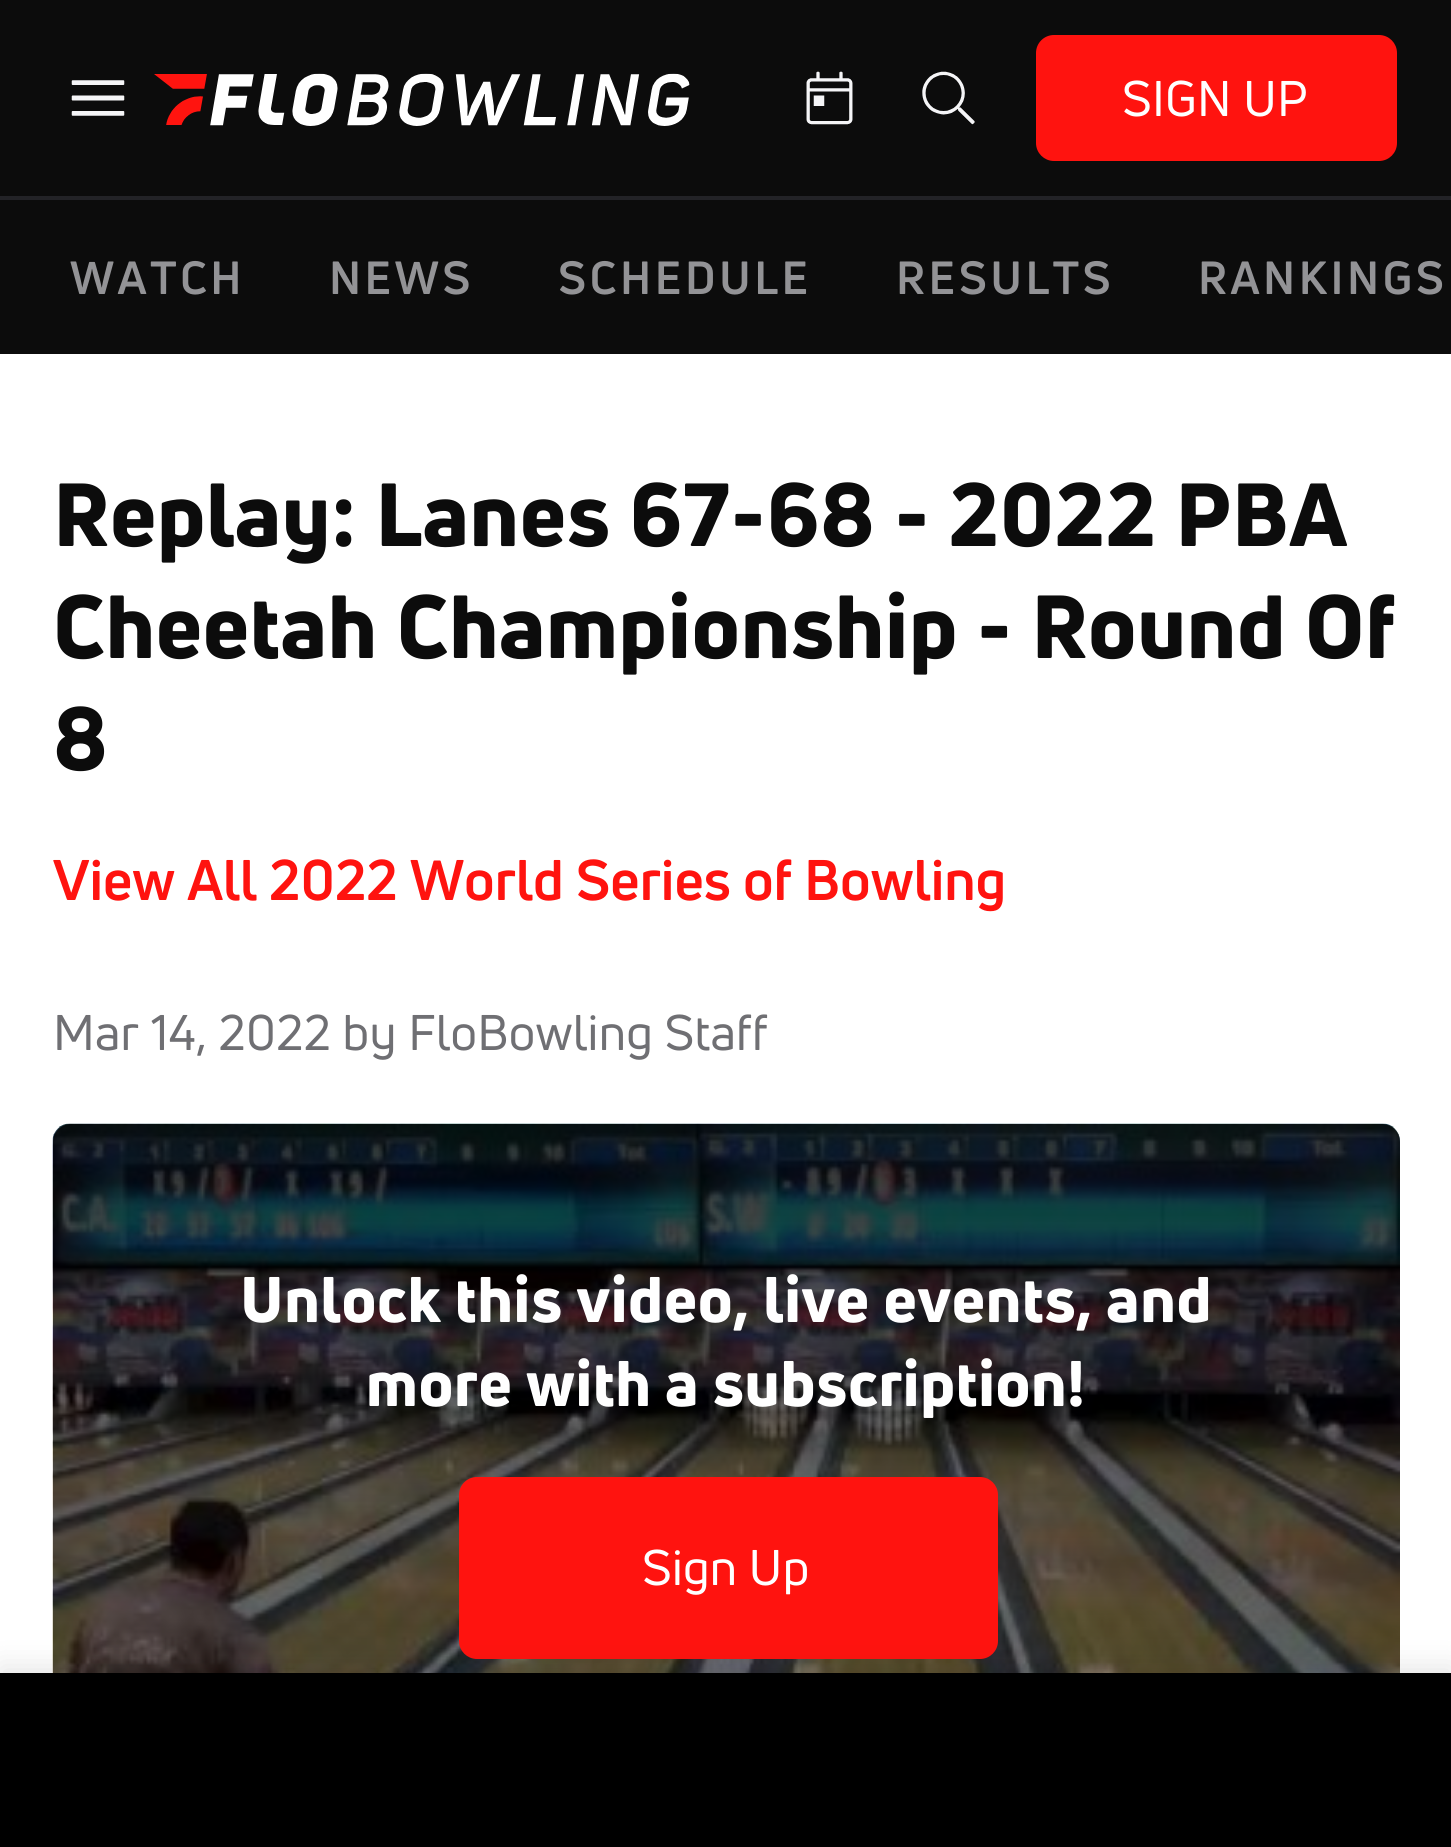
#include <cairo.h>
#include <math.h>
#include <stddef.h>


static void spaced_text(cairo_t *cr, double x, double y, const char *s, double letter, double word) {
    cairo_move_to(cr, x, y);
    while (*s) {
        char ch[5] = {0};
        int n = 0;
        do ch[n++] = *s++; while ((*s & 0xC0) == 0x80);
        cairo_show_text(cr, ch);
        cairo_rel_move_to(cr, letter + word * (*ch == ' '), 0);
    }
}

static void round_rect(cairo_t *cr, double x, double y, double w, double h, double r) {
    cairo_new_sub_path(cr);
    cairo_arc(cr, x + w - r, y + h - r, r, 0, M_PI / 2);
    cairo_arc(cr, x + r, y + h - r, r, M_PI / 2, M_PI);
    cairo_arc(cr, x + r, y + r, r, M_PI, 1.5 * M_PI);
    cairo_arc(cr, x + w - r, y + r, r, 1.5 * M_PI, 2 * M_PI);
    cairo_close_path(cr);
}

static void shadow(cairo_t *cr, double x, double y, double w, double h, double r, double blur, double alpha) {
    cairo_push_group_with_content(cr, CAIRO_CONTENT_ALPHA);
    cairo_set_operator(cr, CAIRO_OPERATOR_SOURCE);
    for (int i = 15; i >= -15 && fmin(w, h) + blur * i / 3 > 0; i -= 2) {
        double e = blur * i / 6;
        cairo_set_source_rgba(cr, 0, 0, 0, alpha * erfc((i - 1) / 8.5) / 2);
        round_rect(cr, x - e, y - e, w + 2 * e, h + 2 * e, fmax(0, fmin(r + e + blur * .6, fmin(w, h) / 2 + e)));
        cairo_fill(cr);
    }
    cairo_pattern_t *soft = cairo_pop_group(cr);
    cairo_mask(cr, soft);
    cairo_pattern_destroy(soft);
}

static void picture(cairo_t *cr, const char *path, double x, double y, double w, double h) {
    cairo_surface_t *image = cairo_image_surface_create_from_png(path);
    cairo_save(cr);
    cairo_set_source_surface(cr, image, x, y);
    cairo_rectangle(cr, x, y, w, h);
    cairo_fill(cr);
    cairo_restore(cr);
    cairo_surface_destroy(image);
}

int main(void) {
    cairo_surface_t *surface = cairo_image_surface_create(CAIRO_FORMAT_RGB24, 1451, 1847);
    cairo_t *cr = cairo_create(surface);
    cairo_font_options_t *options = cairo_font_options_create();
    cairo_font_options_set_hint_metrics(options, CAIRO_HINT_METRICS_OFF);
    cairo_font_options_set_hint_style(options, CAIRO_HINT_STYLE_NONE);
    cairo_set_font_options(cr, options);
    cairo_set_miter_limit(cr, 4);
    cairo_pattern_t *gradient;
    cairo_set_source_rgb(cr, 1, 1, 1);
    cairo_paint(cr);
    cairo_set_source_rgb(cr, 0.047, 0.047, 0.047);
    cairo_rectangle(cr, 0, 0, 1451, 354);
    cairo_fill(cr);
    picture(cr, "img1.png", 71, 80, 54, 36);
    picture(cr, "img2.png", 154, 73, 536, 53);
    picture(cr, "img3.png", 806, 71, 47, 54);
    picture(cr, "img4.png", 922, 71, 53, 54);
    cairo_set_source_rgb(cr, 1, 0.078, 0.059);
    round_rect(cr, 1038, 37, 357, 122, 16);
    cairo_fill_preserve(cr);
    cairo_set_line_width(cr, 4);
    cairo_stroke(cr);
    cairo_select_font_face(cr, "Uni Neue", CAIRO_FONT_SLANT_NORMAL, CAIRO_FONT_WEIGHT_NORMAL);
    cairo_set_font_size(cr, 49);
    cairo_set_source_rgb(cr, 1, 1, 1);
    spaced_text(cr, 1122, 116, "SIGN UP", 0.25, 0);
    cairo_set_source_rgb(cr, 0.137, 0.137, 0.153);
    cairo_rectangle(cr, 0, 196, 1451, 4);
    cairo_fill(cr);
    cairo_select_font_face(cr, "Uni Neue", CAIRO_FONT_SLANT_NORMAL, CAIRO_FONT_WEIGHT_BOLD);
    cairo_set_font_size(cr, 45.5);
    cairo_set_source_rgb(cr, 0.576, 0.576, 0.588);
    spaced_text(cr, 70, 294, "WATCH", 3.5, 0);
    spaced_text(cr, 329, 294, "NEWS", 3.5, 0);
    spaced_text(cr, 558, 294, "SCHEDULE", 3.5, 0);
    spaced_text(cr, 896, 294, "RESULTS", 3.5, 0);
    spaced_text(cr, 1198, 294, "RANKINGS", 3.5, 0);
    cairo_select_font_face(cr, "Uni Neue Black", CAIRO_FONT_SLANT_NORMAL, CAIRO_FONT_WEIGHT_NORMAL);
    cairo_set_font_size(cr, 87.5);
    cairo_set_source_rgb(cr, 0.047, 0.047, 0.047);
    spaced_text(cr, 53, 546, "Replay: Lanes 67-68 - 2022 PBA", 0.65, 0);
    spaced_text(cr, 53, 658, "Cheetah Championship - Round Of", 0.65, 0);
    spaced_text(cr, 53, 770, "8", 0.65, 0);
    cairo_select_font_face(cr, "Uni Neue", CAIRO_FONT_SLANT_NORMAL, CAIRO_FONT_WEIGHT_BOLD);
    cairo_set_font_size(cr, 56);
    cairo_set_source_rgb(cr, 1, 0.078, 0.059);
    cairo_move_to(cr, 53, 900);
    cairo_show_text(cr, "View All 2022 World Series of Bowling");
    cairo_select_font_face(cr, "Uni Neue", CAIRO_FONT_SLANT_NORMAL, CAIRO_FONT_WEIGHT_NORMAL);
    cairo_set_font_size(cr, 49);
    cairo_set_source_rgb(cr, 0.435, 0.435, 0.451);
    spaced_text(cr, 53, 1050, "Mar 14, 2022 by FloBowling Staff", 0.35, 0);
    picture(cr, "img5.png", 52, 1123, 1348, 550);
    gradient = cairo_pattern_create_linear(726, 1124, 726, 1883);
    cairo_pattern_add_color_stop_rgba(gradient, 0, 0, 0, 0, 0.8);
    cairo_pattern_add_color_stop_rgba(gradient, 1, 0, 0, 0, 0.3);
    cairo_set_source(cr, gradient);
    cairo_pattern_destroy(gradient);
    round_rect(cr, 53, 1124, 1347, 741, 18);
    cairo_fill(cr);
    cairo_select_font_face(cr, "Uni Neue Black", CAIRO_FONT_SLANT_NORMAL, CAIRO_FONT_WEIGHT_NORMAL);
    cairo_set_font_size(cr, 63);
    cairo_set_source_rgb(cr, 1, 1, 1);
    spaced_text(cr, 240, 1322, "Unlock this video, live events, and", 0.65, 0);
    spaced_text(cr, 366, 1406, "more with a subscription!", 0.65, 0);
    cairo_set_source_rgb(cr, 1, 0.078, 0.059);
    round_rect(cr, 461, 1479, 535, 178, 16);
    cairo_fill_preserve(cr);
    cairo_stroke(cr);
    cairo_select_font_face(cr, "Uni Neue", CAIRO_FONT_SLANT_NORMAL, CAIRO_FONT_WEIGHT_NORMAL);
    cairo_set_font_size(cr, 49);
    cairo_set_source_rgb(cr, 1, 1, 1);
    spaced_text(cr, 642, 1585, "Sign Up", 0.25, 0);
    cairo_set_source_rgb(cr, 0, 0, 0);
    shadow(cr, 0, 1666, 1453, 175, 0, 14, 0.1);
    cairo_set_source_rgb(cr, 0, 0, 0);
    cairo_rectangle(cr, 0, 1673, 1451, 174);
    cairo_fill(cr);
    cairo_surface_write_to_png(surface, "page.png");
    cairo_font_options_destroy(options);
    cairo_destroy(cr);
    cairo_surface_destroy(surface);
    return 0;
}
